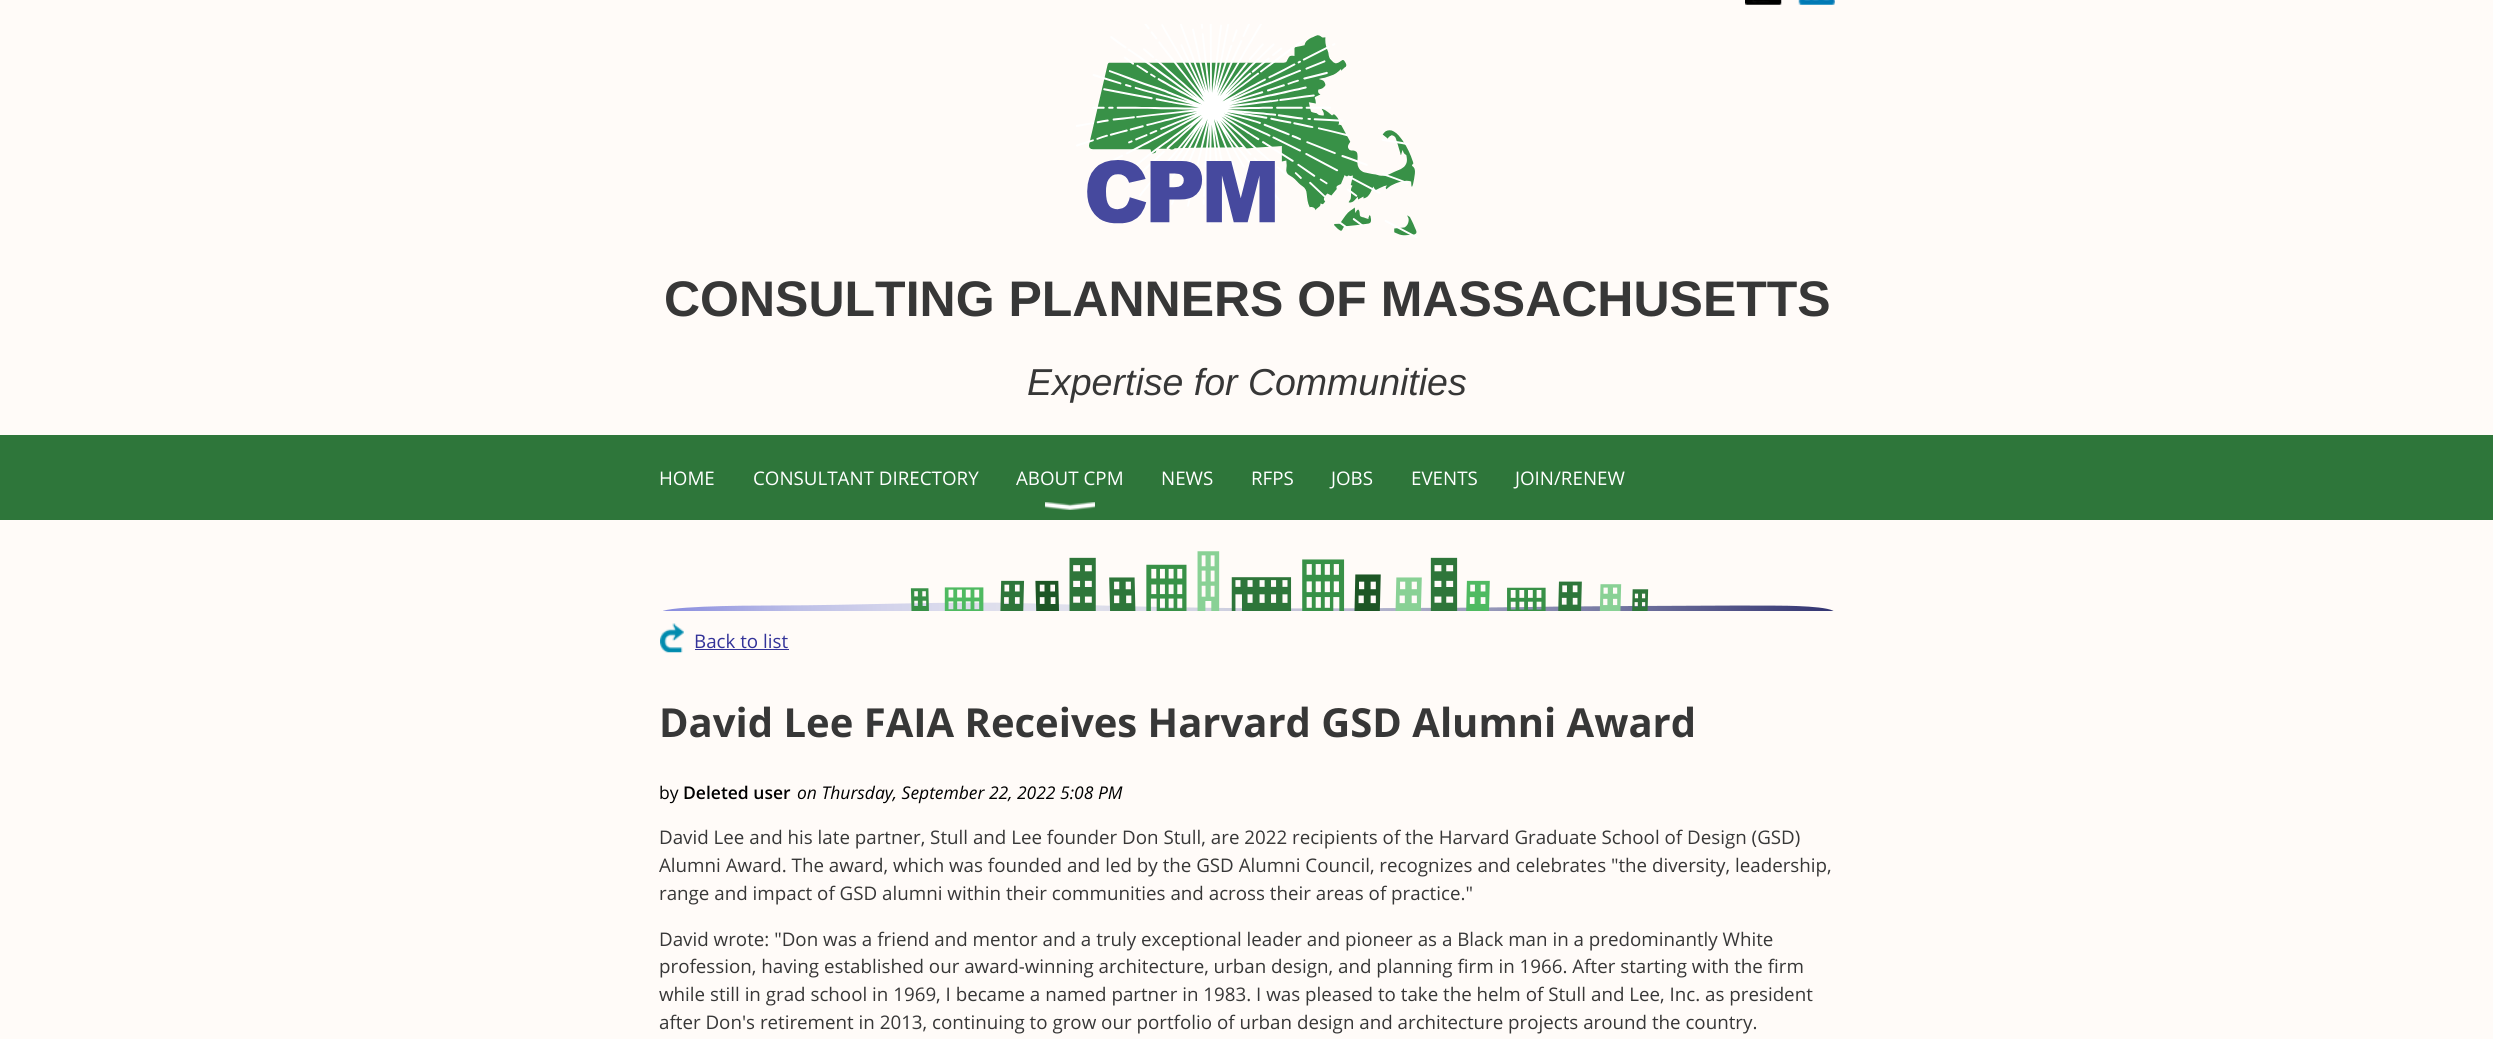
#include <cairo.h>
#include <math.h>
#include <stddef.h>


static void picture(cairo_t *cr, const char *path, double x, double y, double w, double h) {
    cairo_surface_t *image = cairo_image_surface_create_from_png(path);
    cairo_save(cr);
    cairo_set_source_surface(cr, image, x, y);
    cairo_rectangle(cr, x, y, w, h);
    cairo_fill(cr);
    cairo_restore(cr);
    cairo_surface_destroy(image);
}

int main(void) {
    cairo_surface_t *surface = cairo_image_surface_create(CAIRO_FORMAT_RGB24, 2493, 1039);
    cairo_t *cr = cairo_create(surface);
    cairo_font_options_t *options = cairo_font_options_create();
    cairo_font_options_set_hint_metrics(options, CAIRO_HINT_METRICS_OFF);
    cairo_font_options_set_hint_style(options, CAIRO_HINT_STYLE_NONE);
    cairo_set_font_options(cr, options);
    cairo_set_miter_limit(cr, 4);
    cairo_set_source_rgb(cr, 1, 0.984, 0.969);
    cairo_paint(cr);
    picture(cr, "img1.png", 1745, 0, 37, 5);
    picture(cr, "img2.png", 1798, 0, 37, 5);
    picture(cr, "img3.png", 1076, 24, 342, 214);
    cairo_select_font_face(cr, "Liberation Sans", CAIRO_FONT_SLANT_NORMAL, CAIRO_FONT_WEIGHT_BOLD);
    cairo_set_font_size(cr, 50);
    cairo_set_source_rgb(cr, 0.216, 0.216, 0.216);
    cairo_move_to(cr, 664, 316);
    cairo_show_text(cr, "CONSULTING PLANNERS OF MASSACHUSETTS");
    cairo_select_font_face(cr, "Liberation Sans", CAIRO_FONT_SLANT_ITALIC, CAIRO_FONT_WEIGHT_NORMAL);
    cairo_set_font_size(cr, 37.5);
    cairo_move_to(cr, 1027, 395);
    cairo_show_text(cr, "Expertise for Communities");
    cairo_set_source_rgb(cr, 0.18, 0.463, 0.227);
    cairo_rectangle(cr, 0, 435, 2493, 85);
    cairo_fill(cr);
    cairo_select_font_face(cr, "Open Sans", CAIRO_FONT_SLANT_NORMAL, CAIRO_FONT_WEIGHT_NORMAL);
    cairo_set_font_size(cr, 18.75);
    cairo_set_source_rgb(cr, 1, 1, 1);
    cairo_move_to(cr, 659, 485);
    cairo_show_text(cr, "HOME");
    cairo_move_to(cr, 753, 485);
    cairo_show_text(cr, "CONSULTANT DIRECTORY");
    cairo_move_to(cr, 1016, 485);
    cairo_show_text(cr, "ABOUT CPM");
    picture(cr, "img4.png", 1045, 502, 50, 8);
    cairo_move_to(cr, 1161, 485);
    cairo_show_text(cr, "NEWS");
    cairo_move_to(cr, 1251, 485);
    cairo_show_text(cr, "RFPS");
    cairo_move_to(cr, 1331, 485);
    cairo_show_text(cr, "JOBS");
    cairo_move_to(cr, 1411, 485);
    cairo_show_text(cr, "EVENTS");
    cairo_move_to(cr, 1515, 485);
    cairo_show_text(cr, "JOIN/RENEW");
    picture(cr, "img5.png", 663, 551, 1171, 60);
    picture(cr, "img6.png", 660, 623, 24, 30);
    cairo_set_source_rgb(cr, 0.2, 0.2, 0.6);
    cairo_move_to(cr, 694, 648);
    cairo_show_text(cr, "Back to list");
    cairo_rectangle(cr, 695, 649, 94, 1);
    cairo_fill(cr);
    cairo_select_font_face(cr, "Open Sans", CAIRO_FONT_SLANT_NORMAL, CAIRO_FONT_WEIGHT_BOLD);
    cairo_set_font_size(cr, 40);
    cairo_set_source_rgb(cr, 0.216, 0.216, 0.216);
    cairo_move_to(cr, 659, 737);
    cairo_show_text(cr, "David Lee FAIA Receives Harvard GSD Alumni Award");
    cairo_select_font_face(cr, "Open Sans", CAIRO_FONT_SLANT_NORMAL, CAIRO_FONT_WEIGHT_NORMAL);
    cairo_set_font_size(cr, 17.5);
    cairo_set_source_rgb(cr, 0, 0, 0);
    cairo_move_to(cr, 659, 799);
    cairo_show_text(cr, "by");
    cairo_select_font_face(cr, "Open Sans SemiBold", CAIRO_FONT_SLANT_NORMAL, CAIRO_FONT_WEIGHT_NORMAL);
    cairo_move_to(cr, 683, 799);
    cairo_show_text(cr, "Deleted user");
    cairo_select_font_face(cr, "Open Sans", CAIRO_FONT_SLANT_ITALIC, CAIRO_FONT_WEIGHT_NORMAL);
    cairo_move_to(cr, 797, 799);
    cairo_show_text(cr, "on Thursday, September 22, 2022 5:08 PM");
    cairo_select_font_face(cr, "Open Sans", CAIRO_FONT_SLANT_NORMAL, CAIRO_FONT_WEIGHT_NORMAL);
    cairo_set_font_size(cr, 18.75);
    cairo_set_source_rgb(cr, 0.216, 0.216, 0.216);
    cairo_move_to(cr, 659, 844);
    cairo_show_text(cr, "David Lee and his late partner, Stull and Lee founder Don Stull, are 2022 recipients of the Harvard Graduate School of Design (GSD)");
    cairo_move_to(cr, 659, 872);
    cairo_show_text(cr, "Alumni Award. The award, which was founded and led by the GSD Alumni Council, recognizes and celebrates \"the diversity, leadership,");
    cairo_move_to(cr, 659, 900);
    cairo_show_text(cr, "range and impact of GSD alumni within their communities and across their areas of practice.\"");
    cairo_move_to(cr, 659, 946);
    cairo_show_text(cr, "David wrote: \"Don was a friend and mentor and a truly exceptional leader and pioneer as a Black man in a predominantly White");
    cairo_move_to(cr, 659, 973);
    cairo_show_text(cr, "profession, having established our award-winning architecture, urban design, and planning firm in 1966. After starting with the firm");
    cairo_move_to(cr, 659, 1001);
    cairo_show_text(cr, "while still in grad school in 1969, I became a named partner in 1983. I was pleased to take the helm of Stull and Lee, Inc. as president");
    cairo_move_to(cr, 659, 1029);
    cairo_show_text(cr, "after Don's retirement in 2013, continuing to grow our portfolio of urban design and architecture projects around the country.");
    cairo_surface_write_to_png(surface, "page.png");
    cairo_font_options_destroy(options);
    cairo_destroy(cr);
    cairo_surface_destroy(surface);
    return 0;
}
